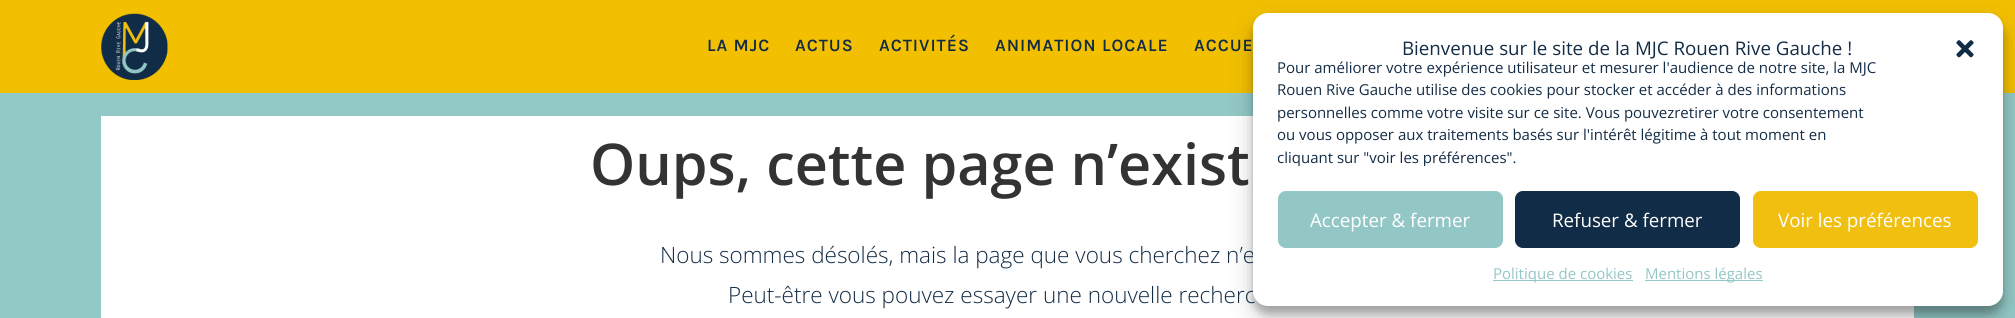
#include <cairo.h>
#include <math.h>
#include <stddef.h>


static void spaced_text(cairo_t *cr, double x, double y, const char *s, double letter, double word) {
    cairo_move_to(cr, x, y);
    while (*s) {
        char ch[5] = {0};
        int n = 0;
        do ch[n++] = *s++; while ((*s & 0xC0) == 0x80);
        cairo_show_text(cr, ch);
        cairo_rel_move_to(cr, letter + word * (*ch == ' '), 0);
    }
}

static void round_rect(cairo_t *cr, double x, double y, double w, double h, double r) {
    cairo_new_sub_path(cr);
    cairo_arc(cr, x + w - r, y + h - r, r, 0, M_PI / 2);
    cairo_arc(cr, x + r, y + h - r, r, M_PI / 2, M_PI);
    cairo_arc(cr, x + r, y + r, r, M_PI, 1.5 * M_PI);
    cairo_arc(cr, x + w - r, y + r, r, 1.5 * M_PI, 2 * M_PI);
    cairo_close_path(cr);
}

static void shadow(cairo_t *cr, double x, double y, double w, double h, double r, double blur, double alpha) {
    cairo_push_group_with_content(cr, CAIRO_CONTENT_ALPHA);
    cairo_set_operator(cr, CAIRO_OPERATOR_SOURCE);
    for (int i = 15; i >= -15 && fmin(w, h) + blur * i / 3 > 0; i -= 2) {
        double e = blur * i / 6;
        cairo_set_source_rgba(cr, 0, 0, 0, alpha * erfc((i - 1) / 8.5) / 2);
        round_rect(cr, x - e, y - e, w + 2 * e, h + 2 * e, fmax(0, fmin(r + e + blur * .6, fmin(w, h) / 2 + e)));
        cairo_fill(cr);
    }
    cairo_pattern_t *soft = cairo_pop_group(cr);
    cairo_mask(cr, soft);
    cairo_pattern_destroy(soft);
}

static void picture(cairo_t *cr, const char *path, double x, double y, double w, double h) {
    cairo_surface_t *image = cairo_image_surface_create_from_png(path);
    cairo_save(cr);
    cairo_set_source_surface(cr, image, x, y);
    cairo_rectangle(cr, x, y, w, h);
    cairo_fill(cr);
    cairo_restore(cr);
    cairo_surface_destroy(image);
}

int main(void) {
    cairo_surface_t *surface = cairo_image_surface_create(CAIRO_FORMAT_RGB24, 2015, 318);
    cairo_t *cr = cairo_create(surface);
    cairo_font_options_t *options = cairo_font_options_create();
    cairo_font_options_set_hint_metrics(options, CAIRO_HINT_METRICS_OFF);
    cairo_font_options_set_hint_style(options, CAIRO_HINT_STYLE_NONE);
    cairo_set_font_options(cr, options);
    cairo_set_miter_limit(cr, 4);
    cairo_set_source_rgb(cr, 0.573, 0.784, 0.773);
    cairo_paint(cr);
    cairo_set_source_rgb(cr, 0.949, 0.749, 0.004);
    cairo_rectangle(cr, 0, 0, 2015, 93);
    cairo_fill(cr);
    picture(cr, "img1.png", 101, 13, 67, 67);
    cairo_select_font_face(cr, "Karla SemiBold", CAIRO_FONT_SLANT_NORMAL, CAIRO_FONT_WEIGHT_NORMAL);
    cairo_set_font_size(cr, 17.5);
    cairo_set_source_rgb(cr, 0.075, 0.173, 0.275);
    spaced_text(cr, 707, 51, "LA MJC", 1, 0);
    spaced_text(cr, 795, 51, "ACTUS", 1, 0);
    spaced_text(cr, 879, 51, "ACTIVITÉS", 1, 0);
    spaced_text(cr, 995, 51, "ANIMATION LOCALE", 1, 0);
    spaced_text(cr, 1194, 51, "ACCUE", 1, 0);
    cairo_set_source_rgb(cr, 1, 1, 1);
    cairo_rectangle(cr, 101, 116, 1813, 202);
    cairo_fill(cr);
    cairo_select_font_face(cr, "Open Sans SemiBold", CAIRO_FONT_SLANT_NORMAL, CAIRO_FONT_WEIGHT_NORMAL);
    cairo_set_font_size(cr, 57.5);
    cairo_set_source_rgb(cr, 0.2, 0.2, 0.2);
    cairo_move_to(cr, 590, 185);
    cairo_show_text(cr, "Oups, cette page n’exist");
    cairo_select_font_face(cr, "Open Sans Light", CAIRO_FONT_SLANT_NORMAL, CAIRO_FONT_WEIGHT_NORMAL);
    cairo_set_font_size(cr, 22.5);
    cairo_set_source_rgb(cr, 0.075, 0.173, 0.275);
    cairo_move_to(cr, 660, 263);
    cairo_show_text(cr, "Nous sommes désolés, mais la page que vous cherchez n’e");
    cairo_move_to(cr, 728, 303);
    cairo_show_text(cr, "Peut-être vous pouvez essayer une nouvelle recherc");
    cairo_set_source_rgb(cr, 0, 0, 0);
    shadow(cr, 1253, 20, 750, 294, 15, 4, 0.23);
    shadow(cr, 1253, 25, 750, 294, 15, 12.5, 0.19);
    cairo_set_source_rgb(cr, 1, 1, 1);
    round_rect(cr, 1253, 13, 750, 293, 15);
    cairo_fill(cr);
    cairo_select_font_face(cr, "Open Sans", CAIRO_FONT_SLANT_NORMAL, CAIRO_FONT_WEIGHT_NORMAL);
    cairo_set_font_size(cr, 18.75);
    cairo_set_source_rgb(cr, 0.075, 0.173, 0.275);
    cairo_move_to(cr, 1402, 55);
    cairo_show_text(cr, "Bienvenue sur le site de la MJC Rouen Rive Gauche !");
    picture(cr, "img2.png", 1956, 40, 18, 18);
    cairo_set_font_size(cr, 15);
    cairo_move_to(cr, 1277, 73);
    cairo_show_text(cr, "Pour améliorer votre expérience utilisateur et mesurer l'audience de notre site, la MJC");
    cairo_move_to(cr, 1277, 95);
    cairo_show_text(cr, "Rouen Rive Gauche utilise des cookies pour stocker et accéder à des informations");
    cairo_move_to(cr, 1277, 118);
    cairo_show_text(cr, "personnelles comme votre visite sur ce site. Vous pouvezretirer votre consentement");
    cairo_move_to(cr, 1277, 140);
    cairo_show_text(cr, "ou vous opposer aux traitements basés sur l'intérêt légitime à tout moment en");
    cairo_save(cr);
    cairo_rectangle(cr, 1278, 56, 700, 110);
    cairo_clip(cr);
    cairo_move_to(cr, 1277, 163);
    cairo_show_text(cr, "cliquant sur \"voir les préférences\".");
    cairo_restore(cr);
    cairo_set_source_rgb(cr, 0.573, 0.78, 0.773);
    round_rect(cr, 1278.5, 191.5, 224, 56, 7.5);
    cairo_fill_preserve(cr);
    cairo_set_line_width(cr, 1);
    cairo_stroke(cr);
    cairo_set_font_size(cr, 18.75);
    cairo_set_source_rgb(cr, 1, 1, 1);
    cairo_move_to(cr, 1310, 227);
    cairo_show_text(cr, "Accepter & fermer");
    cairo_set_source_rgb(cr, 0.067, 0.173, 0.278);
    round_rect(cr, 1515.5, 191.5, 224, 56, 7.5);
    cairo_fill_preserve(cr);
    cairo_stroke(cr);
    cairo_set_source_rgb(cr, 1, 1, 1);
    cairo_move_to(cr, 1552, 227);
    cairo_show_text(cr, "Refuser & fermer");
    cairo_set_source_rgb(cr, 0.945, 0.749, 0.063);
    round_rect(cr, 1753.5, 191.5, 224, 56, 7.5);
    cairo_fill_preserve(cr);
    cairo_stroke(cr);
    cairo_set_source_rgb(cr, 1, 1, 1);
    cairo_move_to(cr, 1778, 227);
    cairo_show_text(cr, "Voir les préférences");
    cairo_set_source_rgb(cr, 0.573, 0.78, 0.773);
    cairo_rectangle(cr, 1493, 280, 140, 1);
    cairo_fill(cr);
    cairo_set_font_size(cr, 15);
    cairo_move_to(cr, 1493, 279);
    cairo_show_text(cr, "Politique de cookies");
    cairo_rectangle(cr, 1645, 280, 118, 1);
    cairo_fill(cr);
    cairo_move_to(cr, 1645, 279);
    cairo_show_text(cr, "Mentions légales");
    cairo_surface_write_to_png(surface, "page.png");
    cairo_font_options_destroy(options);
    cairo_destroy(cr);
    cairo_surface_destroy(surface);
    return 0;
}
